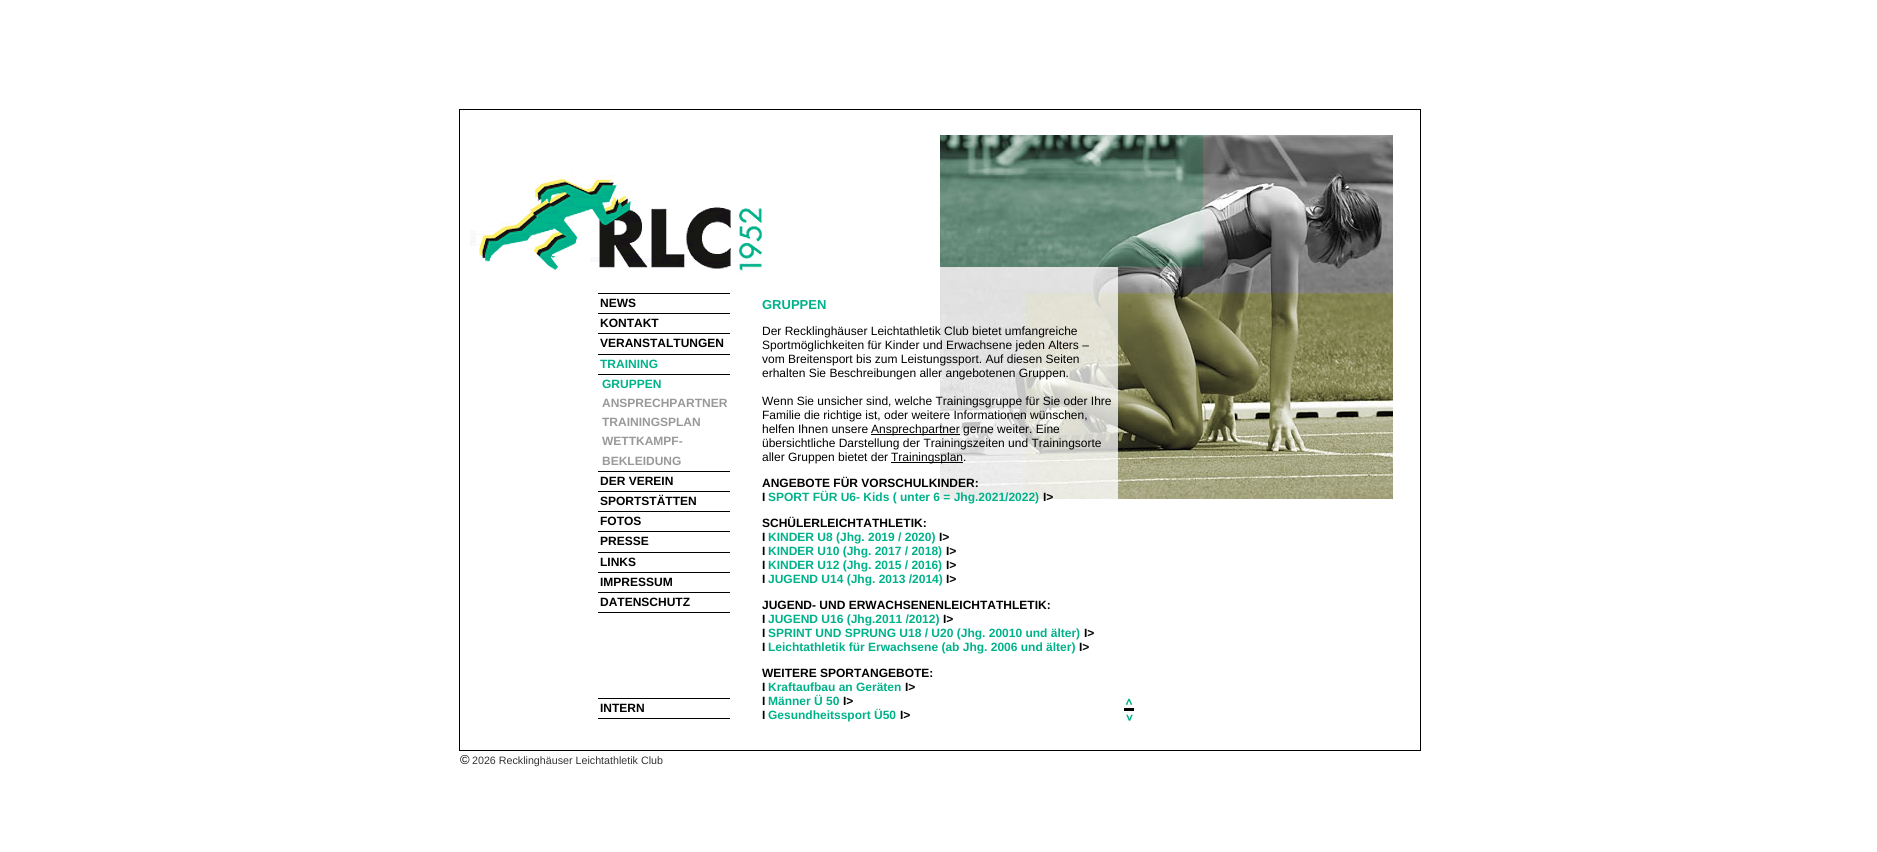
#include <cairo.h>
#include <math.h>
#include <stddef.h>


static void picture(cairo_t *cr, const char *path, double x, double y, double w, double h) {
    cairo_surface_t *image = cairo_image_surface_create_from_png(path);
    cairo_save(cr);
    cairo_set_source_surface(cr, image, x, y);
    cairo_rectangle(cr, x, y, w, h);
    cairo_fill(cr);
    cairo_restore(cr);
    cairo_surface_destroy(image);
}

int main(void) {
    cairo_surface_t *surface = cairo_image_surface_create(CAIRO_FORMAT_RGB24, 1877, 852);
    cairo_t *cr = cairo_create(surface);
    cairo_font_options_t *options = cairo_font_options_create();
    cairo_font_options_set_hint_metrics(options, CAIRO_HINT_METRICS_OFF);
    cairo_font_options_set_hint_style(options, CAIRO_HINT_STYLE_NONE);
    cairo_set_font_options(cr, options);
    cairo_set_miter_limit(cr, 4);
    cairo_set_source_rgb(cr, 1, 1, 1);
    cairo_paint(cr);
    picture(cr, "img1.png", 940, 135, 453, 364);
    cairo_rectangle(cr, 459.5, 109.5, 961, 641);
    cairo_set_source_rgb(cr, 0, 0, 0);
    cairo_set_line_width(cr, 1);
    cairo_stroke(cr);
    picture(cr, "img2.png", 470, 174, 296, 101);
    cairo_rectangle(cr, 598, 293, 132, 1);
    cairo_fill(cr);
    cairo_rectangle(cr, 598, 313, 132, 1);
    cairo_fill(cr);
    cairo_select_font_face(cr, "Liberation Sans", CAIRO_FONT_SLANT_NORMAL, CAIRO_FONT_WEIGHT_BOLD);
    cairo_set_font_size(cr, 12);
    cairo_move_to(cr, 600, 307);
    cairo_show_text(cr, "NEWS");
    cairo_rectangle(cr, 598, 333, 132, 1);
    cairo_fill(cr);
    cairo_move_to(cr, 600, 327);
    cairo_show_text(cr, "KONTAKT");
    cairo_rectangle(cr, 598, 354, 132, 1);
    cairo_fill(cr);
    cairo_move_to(cr, 600, 347);
    cairo_show_text(cr, "VERANSTALTUNGEN");
    cairo_rectangle(cr, 598, 374, 132, 1);
    cairo_fill(cr);
    cairo_set_source_rgb(cr, 0, 0.698, 0.541);
    cairo_move_to(cr, 600, 368);
    cairo_show_text(cr, "TRAINING");
    cairo_set_source_rgb(cr, 0, 0, 0);
    cairo_rectangle(cr, 598, 471, 132, 1);
    cairo_fill(cr);
    cairo_set_source_rgb(cr, 0, 0.698, 0.541);
    cairo_move_to(cr, 602, 388);
    cairo_show_text(cr, "GRUPPEN");
    cairo_set_source_rgb(cr, 0.6, 0.6, 0.6);
    cairo_move_to(cr, 602, 407);
    cairo_show_text(cr, "ANSPRECHPARTNER");
    cairo_move_to(cr, 602, 426);
    cairo_show_text(cr, "TRAININGSPLAN");
    cairo_move_to(cr, 602, 445);
    cairo_show_text(cr, "WETTKAMPF-");
    cairo_move_to(cr, 602, 465);
    cairo_show_text(cr, "BEKLEIDUNG");
    cairo_set_source_rgb(cr, 0, 0, 0);
    cairo_rectangle(cr, 598, 491, 132, 1);
    cairo_fill(cr);
    cairo_move_to(cr, 600, 485);
    cairo_show_text(cr, "DER VEREIN");
    cairo_rectangle(cr, 598, 511, 132, 1);
    cairo_fill(cr);
    cairo_move_to(cr, 600, 505);
    cairo_show_text(cr, "SPORTSTÄTTEN");
    cairo_rectangle(cr, 598, 531, 132, 1);
    cairo_fill(cr);
    cairo_move_to(cr, 600, 525);
    cairo_show_text(cr, "FOTOS");
    cairo_rectangle(cr, 598, 552, 132, 1);
    cairo_fill(cr);
    cairo_move_to(cr, 600, 545);
    cairo_show_text(cr, "PRESSE");
    cairo_rectangle(cr, 598, 572, 132, 1);
    cairo_fill(cr);
    cairo_move_to(cr, 600, 566);
    cairo_show_text(cr, "LINKS");
    cairo_rectangle(cr, 598, 592, 132, 1);
    cairo_fill(cr);
    cairo_move_to(cr, 600, 586);
    cairo_show_text(cr, "IMPRESSUM");
    cairo_rectangle(cr, 598, 612, 132, 1);
    cairo_fill(cr);
    cairo_move_to(cr, 600, 606);
    cairo_show_text(cr, "DATENSCHUTZ");
    cairo_rectangle(cr, 598, 698, 132, 1);
    cairo_fill(cr);
    cairo_rectangle(cr, 598, 718, 132, 1);
    cairo_fill(cr);
    cairo_move_to(cr, 600, 712);
    cairo_show_text(cr, "INTERN");
    cairo_set_font_size(cr, 13);
    cairo_set_source_rgb(cr, 0, 0.698, 0.541);
    cairo_move_to(cr, 762, 309);
    cairo_show_text(cr, "GRUPPEN");
    cairo_select_font_face(cr, "Liberation Sans", CAIRO_FONT_SLANT_NORMAL, CAIRO_FONT_WEIGHT_NORMAL);
    cairo_set_font_size(cr, 12);
    cairo_set_source_rgb(cr, 0, 0, 0);
    cairo_move_to(cr, 762, 335);
    cairo_show_text(cr, "Der Recklinghäuser Leichtathletik Club bietet umfangreiche");
    cairo_move_to(cr, 762, 349);
    cairo_show_text(cr, "Sportmöglichkeiten für Kinder und Erwachsene jeden Alters –");
    cairo_move_to(cr, 762, 363);
    cairo_show_text(cr, "vom Breitensport bis zum Leistungssport. Auf diesen Seiten");
    cairo_move_to(cr, 762, 377);
    cairo_show_text(cr, "erhalten Sie Beschreibungen aller angebotenen Gruppen.");
    cairo_move_to(cr, 762, 405);
    cairo_show_text(cr, "Wenn Sie unsicher sind, welche Trainingsgruppe für Sie oder Ihre");
    cairo_move_to(cr, 762, 419);
    cairo_show_text(cr, "Familie die richtige ist, oder weitere Informationen wünschen,");
    cairo_move_to(cr, 762, 433);
    cairo_show_text(cr, "helfen Ihnen unsere");
    cairo_rectangle(cr, 871, 434, 89, 1);
    cairo_fill(cr);
    cairo_move_to(cr, 871, 433);
    cairo_show_text(cr, "Ansprechpartner gerne weiter. Eine");
    cairo_move_to(cr, 762, 447);
    cairo_show_text(cr, "übersichtliche Darstellung der Trainingszeiten und Trainingsorte");
    cairo_move_to(cr, 762, 461);
    cairo_show_text(cr, "aller Gruppen bietet der");
    cairo_rectangle(cr, 891, 462, 72, 1);
    cairo_fill(cr);
    cairo_move_to(cr, 891, 461);
    cairo_show_text(cr, "Trainingsplan.");
    cairo_select_font_face(cr, "Liberation Sans", CAIRO_FONT_SLANT_NORMAL, CAIRO_FONT_WEIGHT_BOLD);
    cairo_move_to(cr, 762, 487);
    cairo_show_text(cr, "ANGEBOTE FÜR VORSCHULKINDER:");
    cairo_move_to(cr, 762, 501);
    cairo_show_text(cr, "I");
    cairo_set_source_rgb(cr, 0, 0.698, 0.541);
    cairo_move_to(cr, 768, 501);
    cairo_show_text(cr, "SPORT FÜR U6- Kids ( unter 6 = Jhg.2021/2022)");
    cairo_set_source_rgb(cr, 0, 0, 0);
    cairo_move_to(cr, 1043, 501);
    cairo_show_text(cr, "I>");
    cairo_move_to(cr, 762, 527);
    cairo_show_text(cr, "SCHÜLERLEICHTATHLETIK:");
    cairo_move_to(cr, 762, 541);
    cairo_show_text(cr, "I");
    cairo_set_source_rgb(cr, 0, 0.698, 0.541);
    cairo_move_to(cr, 768, 541);
    cairo_show_text(cr, "KINDER U8 (Jhg. 2019 / 2020)");
    cairo_set_source_rgb(cr, 0, 0, 0);
    cairo_move_to(cr, 939, 541);
    cairo_show_text(cr, "I>");
    cairo_move_to(cr, 762, 555);
    cairo_show_text(cr, "I");
    cairo_set_source_rgb(cr, 0, 0.698, 0.541);
    cairo_move_to(cr, 768, 555);
    cairo_show_text(cr, "KINDER U10 (Jhg. 2017 / 2018)");
    cairo_set_source_rgb(cr, 0, 0, 0);
    cairo_move_to(cr, 946, 555);
    cairo_show_text(cr, "I>");
    cairo_move_to(cr, 762, 569);
    cairo_show_text(cr, "I");
    cairo_set_source_rgb(cr, 0, 0.698, 0.541);
    cairo_move_to(cr, 768, 569);
    cairo_show_text(cr, "KINDER U12 (Jhg. 2015 / 2016)");
    cairo_set_source_rgb(cr, 0, 0, 0);
    cairo_move_to(cr, 946, 569);
    cairo_show_text(cr, "I>");
    cairo_move_to(cr, 762, 583);
    cairo_show_text(cr, "I");
    cairo_set_source_rgb(cr, 0, 0.698, 0.541);
    cairo_move_to(cr, 768, 583);
    cairo_show_text(cr, "JUGEND U14 (Jhg. 2013 /2014)");
    cairo_set_source_rgb(cr, 0, 0, 0);
    cairo_move_to(cr, 946, 583);
    cairo_show_text(cr, "I>");
    cairo_move_to(cr, 762, 609);
    cairo_show_text(cr, "JUGEND- UND ERWACHSENENLEICHTATHLETIK:");
    cairo_move_to(cr, 762, 623);
    cairo_show_text(cr, "I");
    cairo_set_source_rgb(cr, 0, 0.698, 0.541);
    cairo_move_to(cr, 768, 623);
    cairo_show_text(cr, "JUGEND U16 (Jhg.2011 /2012)");
    cairo_set_source_rgb(cr, 0, 0, 0);
    cairo_move_to(cr, 943, 623);
    cairo_show_text(cr, "I>");
    cairo_move_to(cr, 762, 637);
    cairo_show_text(cr, "I");
    cairo_set_source_rgb(cr, 0, 0.698, 0.541);
    cairo_move_to(cr, 768, 637);
    cairo_show_text(cr, "SPRINT UND SPRUNG U18 / U20 (Jhg. 20010 und älter)");
    cairo_set_source_rgb(cr, 0, 0, 0);
    cairo_move_to(cr, 1084, 637);
    cairo_show_text(cr, "I>");
    cairo_move_to(cr, 762, 651);
    cairo_show_text(cr, "I");
    cairo_set_source_rgb(cr, 0, 0.698, 0.541);
    cairo_move_to(cr, 768, 651);
    cairo_show_text(cr, "Leichtathletik für Erwachsene (ab Jhg. 2006 und älter)");
    cairo_set_source_rgb(cr, 0, 0, 0);
    cairo_move_to(cr, 1079, 651);
    cairo_show_text(cr, "I>");
    cairo_move_to(cr, 762, 677);
    cairo_show_text(cr, "WEITERE SPORTANGEBOTE:");
    cairo_move_to(cr, 762, 691);
    cairo_show_text(cr, "I");
    cairo_set_source_rgb(cr, 0, 0.698, 0.541);
    cairo_move_to(cr, 768, 691);
    cairo_show_text(cr, "Kraftaufbau an Geräten");
    cairo_set_source_rgb(cr, 0, 0, 0);
    cairo_move_to(cr, 905, 691);
    cairo_show_text(cr, "I>");
    cairo_move_to(cr, 762, 705);
    cairo_show_text(cr, "I");
    cairo_set_source_rgb(cr, 0, 0.698, 0.541);
    cairo_move_to(cr, 768, 705);
    cairo_show_text(cr, "Männer Ü 50");
    cairo_set_source_rgb(cr, 0, 0, 0);
    cairo_move_to(cr, 843, 705);
    cairo_show_text(cr, "I>");
    cairo_move_to(cr, 762, 719);
    cairo_show_text(cr, "I");
    cairo_set_source_rgb(cr, 0, 0.698, 0.541);
    cairo_move_to(cr, 768, 719);
    cairo_show_text(cr, "Gesundheitssport Ü50");
    cairo_set_source_rgb(cr, 0, 0, 0);
    cairo_move_to(cr, 900, 719);
    cairo_show_text(cr, "I>");
    cairo_rectangle(cr, 1124, 708, 10, 3);
    cairo_fill(cr);
    picture(cr, "img3.png", 1125, 698, 8, 7);
    picture(cr, "img4.png", 1126, 714, 7, 7);
    cairo_select_font_face(cr, "Liberation Sans", CAIRO_FONT_SLANT_NORMAL, CAIRO_FONT_WEIGHT_NORMAL);
    cairo_set_font_size(cr, 13);
    cairo_move_to(cr, 460, 764);
    cairo_show_text(cr, "©");
    cairo_set_font_size(cr, 10.7);
    cairo_set_source_rgb(cr, 0.2, 0.2, 0.2);
    cairo_move_to(cr, 472, 764);
    cairo_show_text(cr, "2026 Recklinghäuser Leichtathletik Club");
    cairo_surface_write_to_png(surface, "page.png");
    cairo_font_options_destroy(options);
    cairo_destroy(cr);
    cairo_surface_destroy(surface);
    return 0;
}
